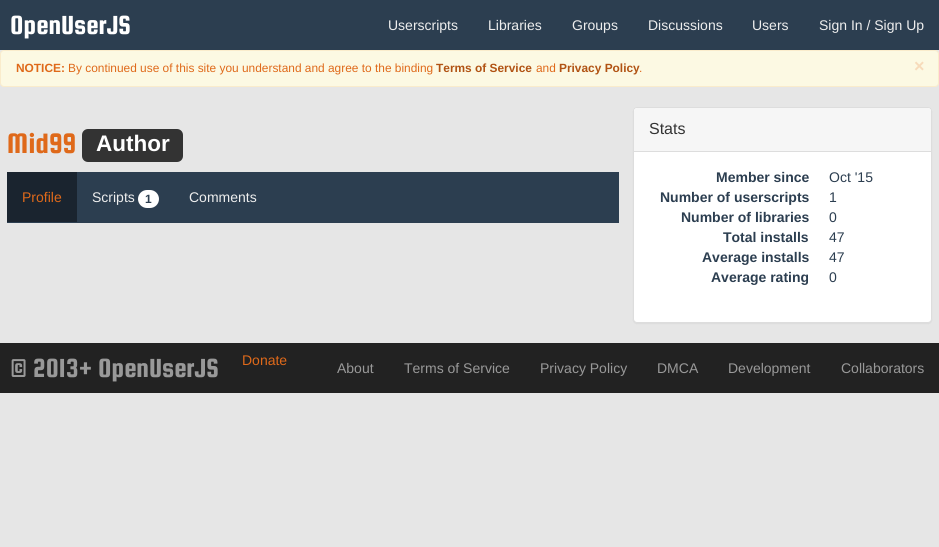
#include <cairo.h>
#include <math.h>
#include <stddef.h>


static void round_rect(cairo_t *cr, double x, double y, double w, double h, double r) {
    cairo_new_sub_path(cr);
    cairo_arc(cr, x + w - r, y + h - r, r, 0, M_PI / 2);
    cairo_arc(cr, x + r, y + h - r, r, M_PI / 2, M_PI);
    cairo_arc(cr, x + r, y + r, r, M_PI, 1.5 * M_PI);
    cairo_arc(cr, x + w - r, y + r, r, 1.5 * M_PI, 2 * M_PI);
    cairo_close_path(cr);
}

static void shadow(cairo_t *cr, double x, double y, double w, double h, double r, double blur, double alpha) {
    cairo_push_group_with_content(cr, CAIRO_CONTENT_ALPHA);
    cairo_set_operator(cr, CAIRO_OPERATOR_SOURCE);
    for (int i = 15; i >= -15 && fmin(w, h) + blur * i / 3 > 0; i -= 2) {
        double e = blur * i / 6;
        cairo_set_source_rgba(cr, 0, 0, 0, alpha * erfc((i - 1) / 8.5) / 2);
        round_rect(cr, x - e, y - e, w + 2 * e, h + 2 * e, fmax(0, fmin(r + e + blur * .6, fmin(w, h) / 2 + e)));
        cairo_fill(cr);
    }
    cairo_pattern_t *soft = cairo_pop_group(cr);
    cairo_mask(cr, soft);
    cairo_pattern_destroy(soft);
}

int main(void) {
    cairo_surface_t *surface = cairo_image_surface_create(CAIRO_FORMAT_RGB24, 939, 547);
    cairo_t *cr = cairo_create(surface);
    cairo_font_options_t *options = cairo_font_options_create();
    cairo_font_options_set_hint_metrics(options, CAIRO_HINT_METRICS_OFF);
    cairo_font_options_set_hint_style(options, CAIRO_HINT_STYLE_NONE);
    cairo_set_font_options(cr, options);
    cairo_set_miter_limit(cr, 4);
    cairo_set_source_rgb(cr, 0.902, 0.902, 0.902);
    cairo_paint(cr);
    cairo_set_source_rgb(cr, 0.173, 0.243, 0.314);
    cairo_rectangle(cr, 0, 0, 939, 50);
    cairo_fill(cr);
    cairo_select_font_face(cr, "Squada One", CAIRO_FONT_SLANT_NORMAL, CAIRO_FONT_WEIGHT_NORMAL);
    cairo_set_font_size(cr, 28);
    cairo_set_source_rgb(cr, 1, 1, 1);
    cairo_move_to(cr, 10, 34);
    cairo_show_text(cr, "OpenUserJS");
    cairo_select_font_face(cr, "Liberation Sans", CAIRO_FONT_SLANT_NORMAL, CAIRO_FONT_WEIGHT_NORMAL);
    cairo_set_font_size(cr, 14);
    cairo_set_source_rgb(cr, 0.933, 0.933, 0.933);
    cairo_move_to(cr, 388, 30);
    cairo_show_text(cr, "Userscripts");
    cairo_move_to(cr, 488, 30);
    cairo_show_text(cr, "Libraries");
    cairo_move_to(cr, 572, 30);
    cairo_show_text(cr, "Groups");
    cairo_move_to(cr, 648, 30);
    cairo_show_text(cr, "Discussions");
    cairo_move_to(cr, 752, 30);
    cairo_show_text(cr, "Users");
    cairo_move_to(cr, 819, 30);
    cairo_show_text(cr, "Sign In / Sign Up");
    cairo_set_source_rgb(cr, 0.988, 0.973, 0.89);
    round_rect(cr, 0.5, 50.5, 938, 36, 3.5);
    cairo_fill_preserve(cr);
    cairo_set_source_rgb(cr, 0.98, 0.922, 0.8);
    cairo_set_line_width(cr, 1);
    cairo_stroke(cr);
    cairo_select_font_face(cr, "Liberation Sans", CAIRO_FONT_SLANT_NORMAL, CAIRO_FONT_WEIGHT_BOLD);
    cairo_set_font_size(cr, 11.9);
    cairo_set_source_rgb(cr, 0.875, 0.412, 0.102);
    cairo_move_to(cr, 16, 72);
    cairo_show_text(cr, "NOTICE:");
    cairo_select_font_face(cr, "Liberation Sans", CAIRO_FONT_SLANT_NORMAL, CAIRO_FONT_WEIGHT_NORMAL);
    cairo_move_to(cr, 68, 72);
    cairo_show_text(cr, "By continued use of this site you understand and agree to the binding");
    cairo_select_font_face(cr, "Liberation Sans", CAIRO_FONT_SLANT_NORMAL, CAIRO_FONT_WEIGHT_BOLD);
    cairo_set_source_rgb(cr, 0.694, 0.325, 0.082);
    cairo_move_to(cr, 436, 72);
    cairo_show_text(cr, "Terms of Service");
    cairo_select_font_face(cr, "Liberation Sans", CAIRO_FONT_SLANT_NORMAL, CAIRO_FONT_WEIGHT_NORMAL);
    cairo_set_source_rgb(cr, 0.875, 0.412, 0.102);
    cairo_move_to(cr, 536, 72);
    cairo_show_text(cr, "and");
    cairo_select_font_face(cr, "Liberation Sans", CAIRO_FONT_SLANT_NORMAL, CAIRO_FONT_WEIGHT_BOLD);
    cairo_set_source_rgb(cr, 0.694, 0.325, 0.082);
    cairo_move_to(cr, 559, 72);
    cairo_show_text(cr, "Privacy Policy");
    cairo_select_font_face(cr, "Liberation Sans", CAIRO_FONT_SLANT_NORMAL, CAIRO_FONT_WEIGHT_NORMAL);
    cairo_set_source_rgb(cr, 0.875, 0.412, 0.102);
    cairo_move_to(cr, 639, 72);
    cairo_show_text(cr, ".");
    cairo_select_font_face(cr, "Liberation Sans", CAIRO_FONT_SLANT_NORMAL, CAIRO_FONT_WEIGHT_BOLD);
    cairo_set_font_size(cr, 18);
    cairo_set_source_rgb(cr, 0.965, 0.859, 0.733);
    cairo_move_to(cr, 914, 72);
    cairo_show_text(cr, "×");
    cairo_select_font_face(cr, "Squada One", CAIRO_FONT_SLANT_NORMAL, CAIRO_FONT_WEIGHT_NORMAL);
    cairo_set_font_size(cr, 30);
    cairo_set_source_rgb(cr, 0.875, 0.412, 0.102);
    cairo_move_to(cr, 7, 153);
    cairo_show_text(cr, "Mid99");
    cairo_set_source_rgb(cr, 0.2, 0.2, 0.2);
    round_rect(cr, 82, 129, 101, 33, 6);
    cairo_fill(cr);
    cairo_select_font_face(cr, "Liberation Sans", CAIRO_FONT_SLANT_NORMAL, CAIRO_FONT_WEIGHT_BOLD);
    cairo_set_font_size(cr, 22.5);
    cairo_set_source_rgb(cr, 1, 1, 1);
    cairo_move_to(cr, 96, 151);
    cairo_show_text(cr, "Author");
    cairo_set_source_rgb(cr, 0.173, 0.243, 0.314);
    cairo_rectangle(cr, 7, 172, 612, 51);
    cairo_fill(cr);
    cairo_set_source_rgb(cr, 0.102, 0.141, 0.184);
    cairo_rectangle(cr, 7, 172, 70, 50);
    cairo_fill(cr);
    cairo_select_font_face(cr, "Liberation Sans", CAIRO_FONT_SLANT_NORMAL, CAIRO_FONT_WEIGHT_NORMAL);
    cairo_set_font_size(cr, 14);
    cairo_set_source_rgb(cr, 0.875, 0.412, 0.102);
    cairo_move_to(cr, 22, 202);
    cairo_show_text(cr, "Profile");
    cairo_set_source_rgb(cr, 0.933, 0.933, 0.933);
    cairo_move_to(cr, 92, 202);
    cairo_show_text(cr, "Scripts");
    cairo_set_source_rgb(cr, 1, 1, 1);
    round_rect(cr, 138, 190, 21, 18, 9);
    cairo_fill(cr);
    cairo_select_font_face(cr, "Liberation Sans", CAIRO_FONT_SLANT_NORMAL, CAIRO_FONT_WEIGHT_BOLD);
    cairo_set_font_size(cr, 12);
    cairo_set_source_rgb(cr, 0.173, 0.243, 0.314);
    cairo_move_to(cr, 145, 203);
    cairo_show_text(cr, "1");
    cairo_select_font_face(cr, "Liberation Sans", CAIRO_FONT_SLANT_NORMAL, CAIRO_FONT_WEIGHT_NORMAL);
    cairo_set_font_size(cr, 14);
    cairo_set_source_rgb(cr, 0.933, 0.933, 0.933);
    cairo_move_to(cr, 189, 202);
    cairo_show_text(cr, "Comments");
    cairo_set_source_rgb(cr, 0, 0, 0);
    shadow(cr, 633, 108, 299, 216, 4, 0.5, 0.05);
    cairo_set_source_rgb(cr, 1, 1, 1);
    round_rect(cr, 633.5, 107.5, 298, 215, 3.5);
    cairo_fill_preserve(cr);
    cairo_set_source_rgb(cr, 0.867, 0.867, 0.867);
    cairo_stroke(cr);
    cairo_set_source_rgb(cr, 0.961, 0.961, 0.961);
    cairo_new_path(cr);
    cairo_move_to(cr, 637, 108);
    cairo_line_to(cr, 928, 108);
    cairo_curve_to(cr, 929.5, 108, 931, 109.5, 931, 111);
    cairo_line_to(cr, 931, 152);
    cairo_line_to(cr, 634, 152);
    cairo_line_to(cr, 634, 111);
    cairo_curve_to(cr, 634, 109.5, 635.5, 108, 637, 108);
    cairo_close_path(cr);
    cairo_fill(cr);
    cairo_set_source_rgb(cr, 0.867, 0.867, 0.867);
    cairo_rectangle(cr, 634, 151, 297, 1);
    cairo_fill(cr);
    cairo_set_font_size(cr, 16);
    cairo_set_source_rgb(cr, 0.2, 0.2, 0.2);
    cairo_move_to(cr, 649, 134);
    cairo_show_text(cr, "Stats");
    cairo_select_font_face(cr, "Liberation Sans", CAIRO_FONT_SLANT_NORMAL, CAIRO_FONT_WEIGHT_BOLD);
    cairo_set_font_size(cr, 14);
    cairo_set_source_rgb(cr, 0.173, 0.243, 0.314);
    cairo_move_to(cr, 716, 182);
    cairo_show_text(cr, "Member since");
    cairo_select_font_face(cr, "Liberation Sans", CAIRO_FONT_SLANT_NORMAL, CAIRO_FONT_WEIGHT_NORMAL);
    cairo_move_to(cr, 829, 182);
    cairo_show_text(cr, "Oct '15");
    cairo_select_font_face(cr, "Liberation Sans", CAIRO_FONT_SLANT_NORMAL, CAIRO_FONT_WEIGHT_BOLD);
    cairo_move_to(cr, 660, 202);
    cairo_show_text(cr, "Number of userscripts");
    cairo_select_font_face(cr, "Liberation Sans", CAIRO_FONT_SLANT_NORMAL, CAIRO_FONT_WEIGHT_NORMAL);
    cairo_move_to(cr, 829, 202);
    cairo_show_text(cr, "1");
    cairo_select_font_face(cr, "Liberation Sans", CAIRO_FONT_SLANT_NORMAL, CAIRO_FONT_WEIGHT_BOLD);
    cairo_move_to(cr, 681, 222);
    cairo_show_text(cr, "Number of libraries");
    cairo_select_font_face(cr, "Liberation Sans", CAIRO_FONT_SLANT_NORMAL, CAIRO_FONT_WEIGHT_NORMAL);
    cairo_move_to(cr, 829, 222);
    cairo_show_text(cr, "0");
    cairo_select_font_face(cr, "Liberation Sans", CAIRO_FONT_SLANT_NORMAL, CAIRO_FONT_WEIGHT_BOLD);
    cairo_move_to(cr, 723, 242);
    cairo_show_text(cr, "Total installs");
    cairo_select_font_face(cr, "Liberation Sans", CAIRO_FONT_SLANT_NORMAL, CAIRO_FONT_WEIGHT_NORMAL);
    cairo_move_to(cr, 829, 242);
    cairo_show_text(cr, "47");
    cairo_select_font_face(cr, "Liberation Sans", CAIRO_FONT_SLANT_NORMAL, CAIRO_FONT_WEIGHT_BOLD);
    cairo_move_to(cr, 702, 262);
    cairo_show_text(cr, "Average installs");
    cairo_select_font_face(cr, "Liberation Sans", CAIRO_FONT_SLANT_NORMAL, CAIRO_FONT_WEIGHT_NORMAL);
    cairo_move_to(cr, 829, 262);
    cairo_show_text(cr, "47");
    cairo_select_font_face(cr, "Liberation Sans", CAIRO_FONT_SLANT_NORMAL, CAIRO_FONT_WEIGHT_BOLD);
    cairo_move_to(cr, 711, 282);
    cairo_show_text(cr, "Average rating");
    cairo_select_font_face(cr, "Liberation Sans", CAIRO_FONT_SLANT_NORMAL, CAIRO_FONT_WEIGHT_NORMAL);
    cairo_move_to(cr, 829, 282);
    cairo_show_text(cr, "0");
    cairo_set_source_rgb(cr, 0.133, 0.133, 0.133);
    cairo_rectangle(cr, 0, 343, 939, 50);
    cairo_fill(cr);
    cairo_select_font_face(cr, "Squada One", CAIRO_FONT_SLANT_NORMAL, CAIRO_FONT_WEIGHT_NORMAL);
    cairo_set_font_size(cr, 28);
    cairo_set_source_rgb(cr, 0.6, 0.6, 0.6);
    cairo_move_to(cr, 10, 377);
    cairo_show_text(cr, "© 2013+ OpenUserJS");
    cairo_select_font_face(cr, "Liberation Sans", CAIRO_FONT_SLANT_NORMAL, CAIRO_FONT_WEIGHT_NORMAL);
    cairo_set_font_size(cr, 14);
    cairo_set_source_rgb(cr, 0.875, 0.412, 0.102);
    cairo_move_to(cr, 242, 365);
    cairo_show_text(cr, "Donate");
    cairo_set_source_rgb(cr, 0.6, 0.6, 0.6);
    cairo_move_to(cr, 337, 373);
    cairo_show_text(cr, "About");
    cairo_move_to(cr, 404, 373);
    cairo_show_text(cr, "Terms of Service");
    cairo_move_to(cr, 540, 373);
    cairo_show_text(cr, "Privacy Policy");
    cairo_move_to(cr, 657, 373);
    cairo_show_text(cr, "DMCA");
    cairo_move_to(cr, 728, 373);
    cairo_show_text(cr, "Development");
    cairo_move_to(cr, 841, 373);
    cairo_show_text(cr, "Collaborators");
    cairo_surface_write_to_png(surface, "page.png");
    cairo_font_options_destroy(options);
    cairo_destroy(cr);
    cairo_surface_destroy(surface);
    return 0;
}
